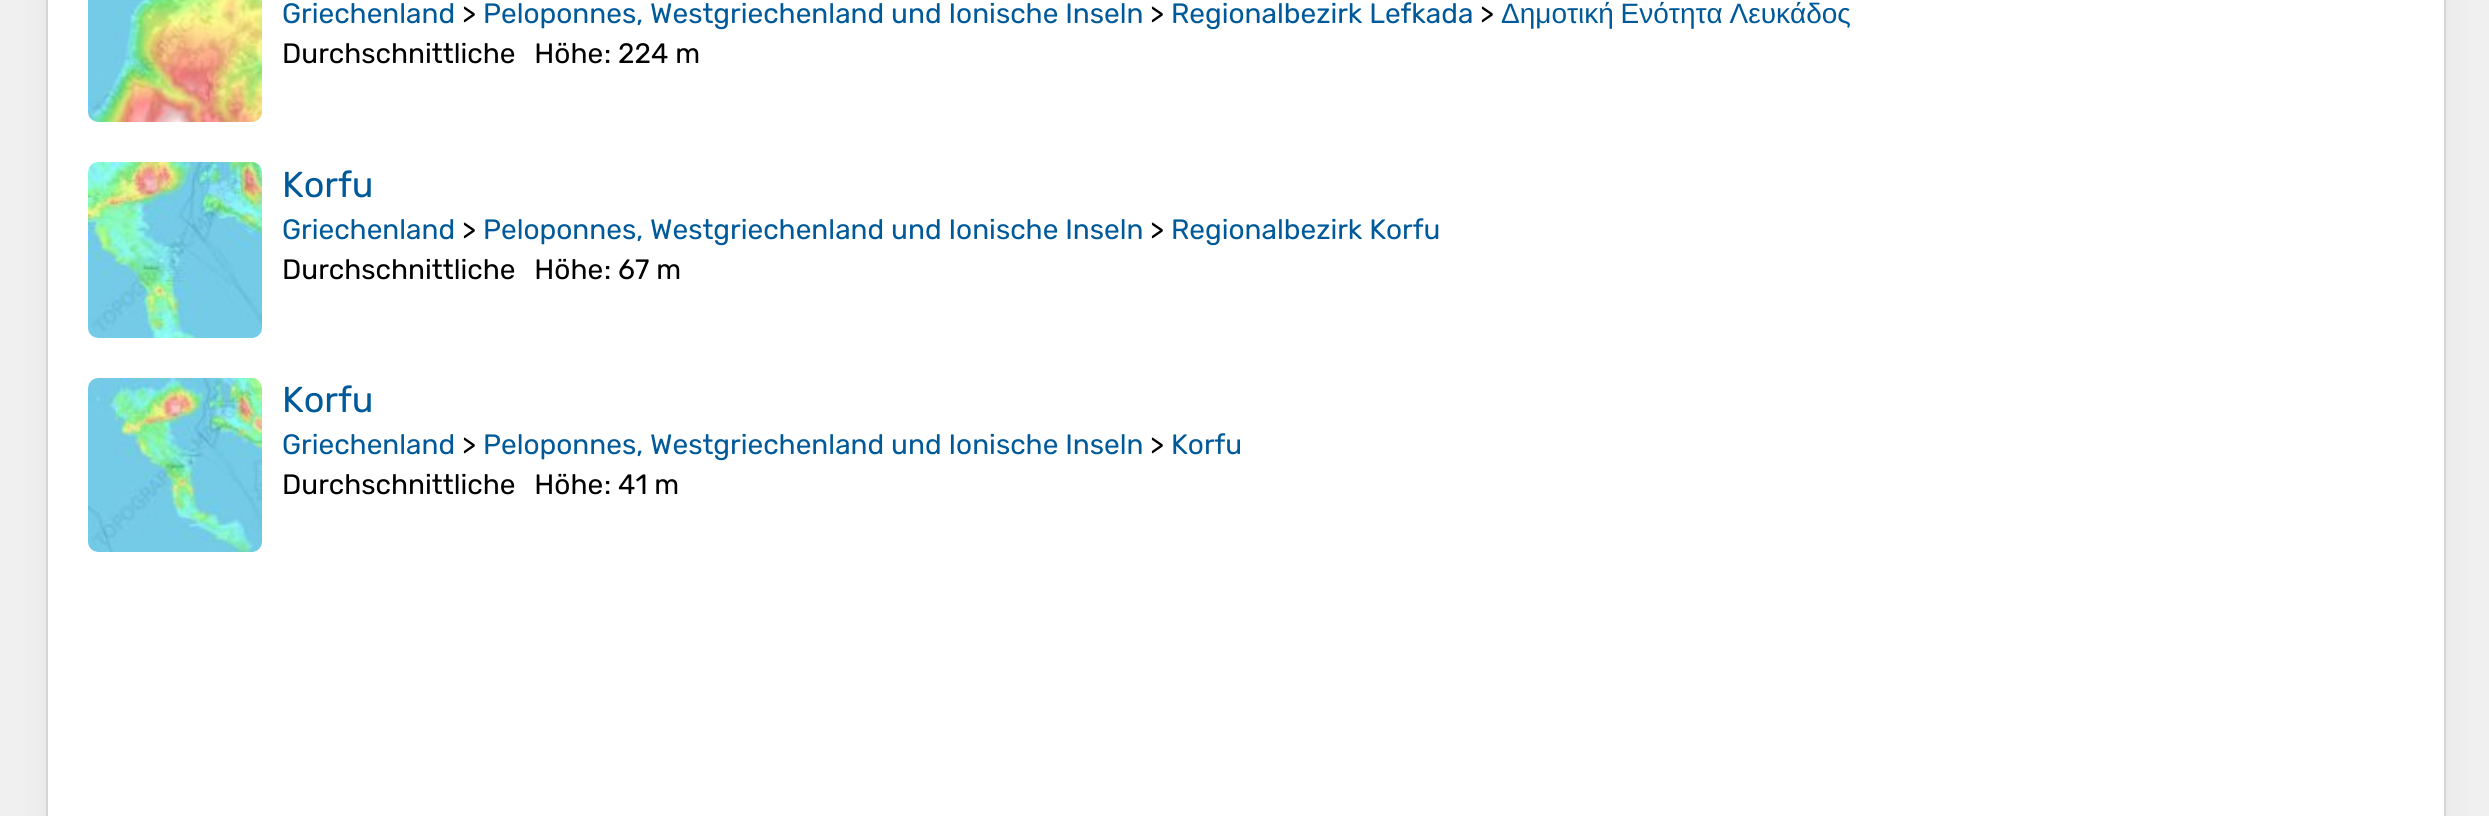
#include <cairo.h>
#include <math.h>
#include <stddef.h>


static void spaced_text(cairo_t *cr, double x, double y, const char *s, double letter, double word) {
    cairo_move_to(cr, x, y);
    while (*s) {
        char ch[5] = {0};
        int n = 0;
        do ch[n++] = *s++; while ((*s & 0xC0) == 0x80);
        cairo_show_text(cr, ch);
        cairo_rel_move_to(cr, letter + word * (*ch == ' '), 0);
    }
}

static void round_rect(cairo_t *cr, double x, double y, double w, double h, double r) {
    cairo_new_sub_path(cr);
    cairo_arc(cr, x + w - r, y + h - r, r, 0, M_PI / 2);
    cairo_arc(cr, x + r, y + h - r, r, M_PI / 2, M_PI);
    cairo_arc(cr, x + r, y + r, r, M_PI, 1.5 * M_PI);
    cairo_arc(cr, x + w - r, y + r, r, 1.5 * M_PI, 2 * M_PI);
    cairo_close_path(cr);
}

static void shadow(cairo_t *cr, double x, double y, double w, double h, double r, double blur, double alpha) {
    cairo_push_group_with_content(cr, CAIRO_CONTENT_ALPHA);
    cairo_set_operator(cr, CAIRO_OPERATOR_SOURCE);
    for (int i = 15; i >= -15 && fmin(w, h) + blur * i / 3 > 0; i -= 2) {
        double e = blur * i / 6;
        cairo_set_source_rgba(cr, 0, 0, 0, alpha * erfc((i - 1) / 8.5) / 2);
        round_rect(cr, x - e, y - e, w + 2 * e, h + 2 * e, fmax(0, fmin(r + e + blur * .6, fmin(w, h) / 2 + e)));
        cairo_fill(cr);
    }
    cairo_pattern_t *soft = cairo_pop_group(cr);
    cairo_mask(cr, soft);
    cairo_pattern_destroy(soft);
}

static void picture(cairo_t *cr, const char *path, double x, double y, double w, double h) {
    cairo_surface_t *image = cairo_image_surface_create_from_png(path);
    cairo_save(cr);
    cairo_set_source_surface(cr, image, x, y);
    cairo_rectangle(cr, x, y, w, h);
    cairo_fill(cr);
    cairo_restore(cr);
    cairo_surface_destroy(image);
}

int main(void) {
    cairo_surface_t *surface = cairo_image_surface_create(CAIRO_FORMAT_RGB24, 2489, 816);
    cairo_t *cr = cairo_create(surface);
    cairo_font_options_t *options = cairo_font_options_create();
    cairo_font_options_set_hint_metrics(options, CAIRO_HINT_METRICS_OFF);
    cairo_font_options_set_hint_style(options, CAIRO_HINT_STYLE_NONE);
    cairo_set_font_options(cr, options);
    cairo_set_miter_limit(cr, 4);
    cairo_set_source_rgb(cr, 0.941, 0.941, 0.941);
    cairo_paint(cr);
    cairo_set_source_rgb(cr, 0, 0, 0);
    shadow(cr, 46, -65, 2400, 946, 20, 15, 0.05);
    cairo_set_source_rgb(cr, 1, 1, 1);
    cairo_rectangle(cr, 47, -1, 2398, 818);
    cairo_fill_preserve(cr);
    cairo_set_source_rgb(cr, 0.839, 0.839, 0.839);
    cairo_stroke(cr);
    picture(cr, "img1.png", 88, 0, 174, 122);
    cairo_select_font_face(cr, "Rubik", CAIRO_FONT_SLANT_NORMAL, CAIRO_FONT_WEIGHT_NORMAL);
    cairo_set_font_size(cr, 28);
    cairo_set_source_rgb(cr, 0, 0.349, 0.6);
    cairo_move_to(cr, 282, 23);
    cairo_show_text(cr, "Griechenland");
    cairo_set_source_rgb(cr, 0, 0, 0);
    cairo_move_to(cr, 462, 23);
    cairo_show_text(cr, ">");
    cairo_set_source_rgb(cr, 0, 0.349, 0.6);
    cairo_move_to(cr, 483, 23);
    cairo_show_text(cr, "Peloponnes, Westgriechenland und Ionische Inseln");
    cairo_set_source_rgb(cr, 0, 0, 0);
    cairo_move_to(cr, 1150, 23);
    cairo_show_text(cr, ">");
    cairo_set_source_rgb(cr, 0, 0.349, 0.6);
    cairo_move_to(cr, 1171, 23);
    cairo_show_text(cr, "Regionalbezirk Lefkada");
    cairo_set_source_rgb(cr, 0, 0, 0);
    cairo_move_to(cr, 1480, 23);
    cairo_show_text(cr, ">");
    cairo_select_font_face(cr, "Liberation Sans", CAIRO_FONT_SLANT_NORMAL, CAIRO_FONT_WEIGHT_NORMAL);
    cairo_set_source_rgb(cr, 0, 0.349, 0.6);
    spaced_text(cr, 1501, 23, "Δημοτική Ενότητα Λευκάδος", 0, -1);
    cairo_select_font_face(cr, "Rubik", CAIRO_FONT_SLANT_NORMAL, CAIRO_FONT_WEIGHT_NORMAL);
    cairo_set_source_rgb(cr, 0, 0, 0);
    spaced_text(cr, 282, 63, "Durchschnittliche Höhe", 0, 12);
    cairo_move_to(cr, 604, 63);
    cairo_show_text(cr, ": 224 m");
    picture(cr, "img2.png", 88, 162, 174, 176);
    cairo_set_font_size(cr, 36);
    cairo_set_source_rgb(cr, 0, 0.349, 0.6);
    cairo_move_to(cr, 282, 197);
    cairo_show_text(cr, "Korfu");
    cairo_set_font_size(cr, 28);
    cairo_move_to(cr, 282, 239);
    cairo_show_text(cr, "Griechenland");
    cairo_set_source_rgb(cr, 0, 0, 0);
    cairo_move_to(cr, 462, 239);
    cairo_show_text(cr, ">");
    cairo_set_source_rgb(cr, 0, 0.349, 0.6);
    cairo_move_to(cr, 483, 239);
    cairo_show_text(cr, "Peloponnes, Westgriechenland und Ionische Inseln");
    cairo_set_source_rgb(cr, 0, 0, 0);
    cairo_move_to(cr, 1150, 239);
    cairo_show_text(cr, ">");
    cairo_set_source_rgb(cr, 0, 0.349, 0.6);
    cairo_move_to(cr, 1171, 239);
    cairo_show_text(cr, "Regionalbezirk Korfu");
    cairo_set_source_rgb(cr, 0, 0, 0);
    spaced_text(cr, 282, 279, "Durchschnittliche Höhe", 0, 12);
    cairo_move_to(cr, 604, 279);
    cairo_show_text(cr, ": 67 m");
    picture(cr, "img3.png", 88, 378, 174, 174);
    cairo_set_font_size(cr, 36);
    cairo_set_source_rgb(cr, 0, 0.349, 0.6);
    cairo_move_to(cr, 282, 412);
    cairo_show_text(cr, "Korfu");
    cairo_set_font_size(cr, 28);
    cairo_move_to(cr, 282, 454);
    cairo_show_text(cr, "Griechenland");
    cairo_set_source_rgb(cr, 0, 0, 0);
    cairo_move_to(cr, 462, 454);
    cairo_show_text(cr, ">");
    cairo_set_source_rgb(cr, 0, 0.349, 0.6);
    cairo_move_to(cr, 483, 454);
    cairo_show_text(cr, "Peloponnes, Westgriechenland und Ionische Inseln");
    cairo_set_source_rgb(cr, 0, 0, 0);
    cairo_move_to(cr, 1150, 454);
    cairo_show_text(cr, ">");
    cairo_set_source_rgb(cr, 0, 0.349, 0.6);
    cairo_move_to(cr, 1171, 454);
    cairo_show_text(cr, "Korfu");
    cairo_set_source_rgb(cr, 0, 0, 0);
    spaced_text(cr, 282, 494, "Durchschnittliche Höhe", 0, 12);
    cairo_move_to(cr, 604, 494);
    cairo_show_text(cr, ": 41 m");
    cairo_surface_write_to_png(surface, "page.png");
    cairo_font_options_destroy(options);
    cairo_destroy(cr);
    cairo_surface_destroy(surface);
    return 0;
}
